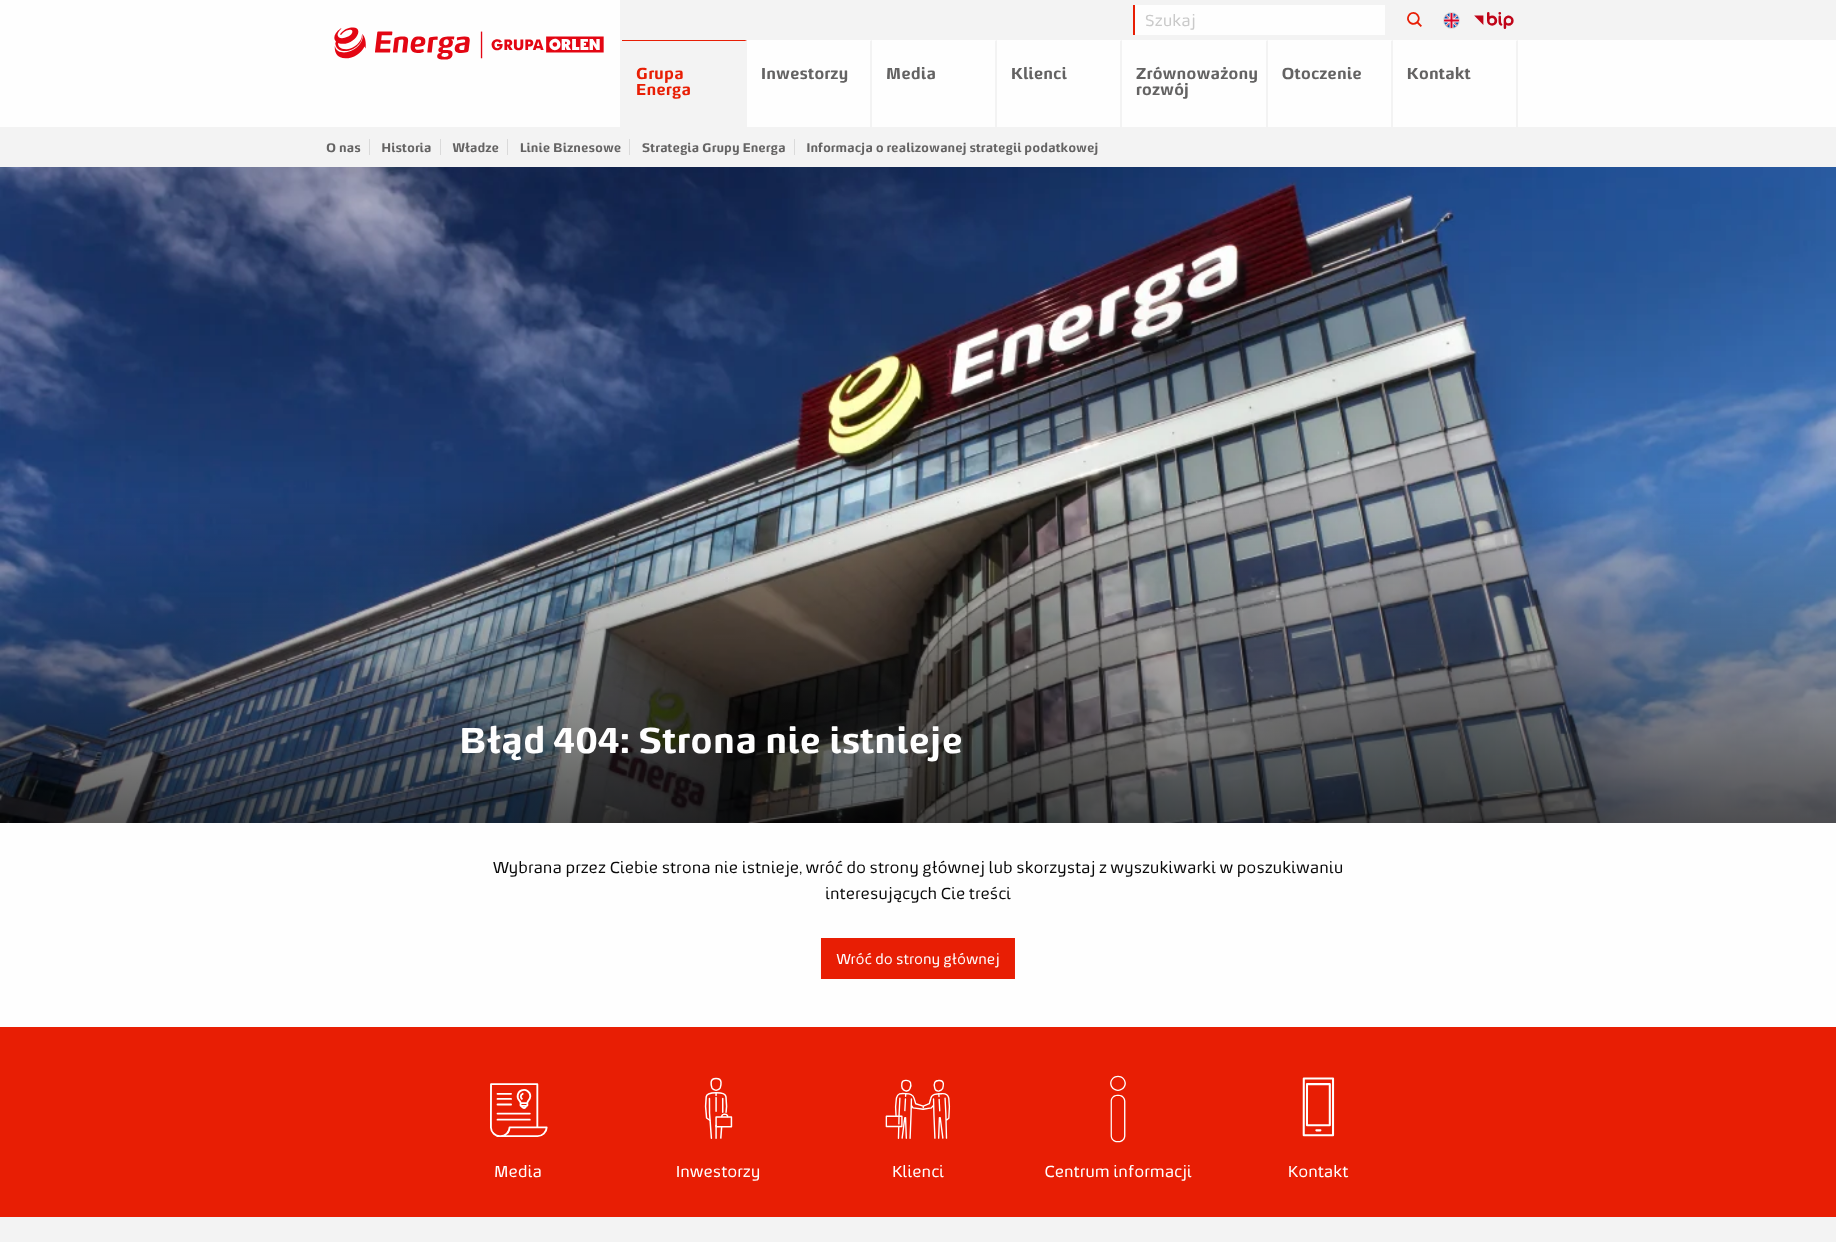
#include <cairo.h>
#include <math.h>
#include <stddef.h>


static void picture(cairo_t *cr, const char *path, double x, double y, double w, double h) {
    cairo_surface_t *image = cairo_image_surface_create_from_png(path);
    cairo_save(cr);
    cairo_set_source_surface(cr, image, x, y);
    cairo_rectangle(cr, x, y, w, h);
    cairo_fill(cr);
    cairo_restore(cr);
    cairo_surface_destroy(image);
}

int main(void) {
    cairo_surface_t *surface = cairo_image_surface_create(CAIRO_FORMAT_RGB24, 1836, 1242);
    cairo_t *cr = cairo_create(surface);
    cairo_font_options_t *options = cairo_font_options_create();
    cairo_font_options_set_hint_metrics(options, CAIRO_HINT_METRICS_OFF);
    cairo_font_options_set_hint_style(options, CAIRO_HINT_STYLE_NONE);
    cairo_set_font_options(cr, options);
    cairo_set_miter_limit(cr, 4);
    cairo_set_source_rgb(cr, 1, 1, 1);
    cairo_paint(cr);
    picture(cr, "img1.png", 0, 0, 1836, 1242);
    cairo_surface_write_to_png(surface, "page.png");
    cairo_font_options_destroy(options);
    cairo_destroy(cr);
    cairo_surface_destroy(surface);
    return 0;
}
